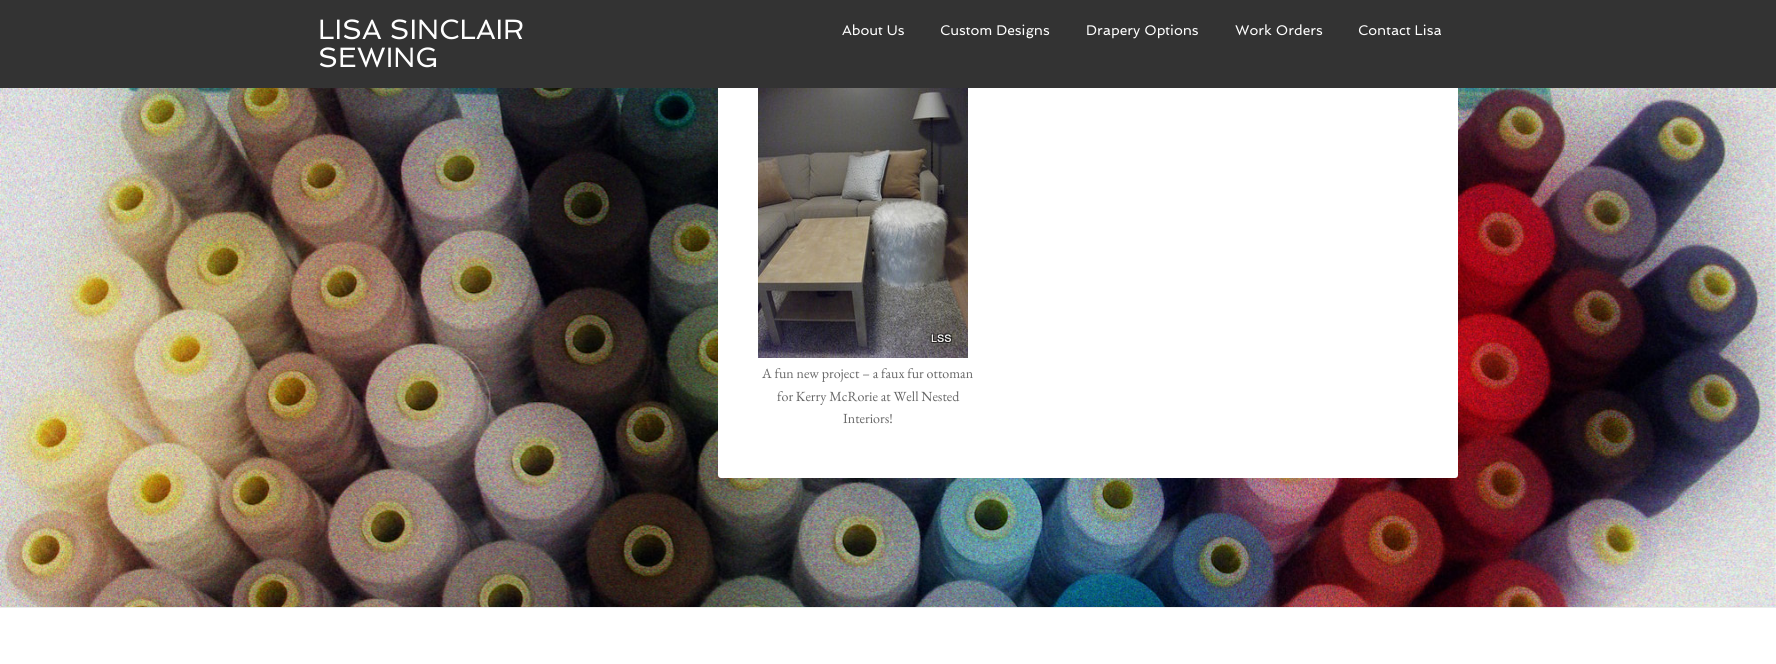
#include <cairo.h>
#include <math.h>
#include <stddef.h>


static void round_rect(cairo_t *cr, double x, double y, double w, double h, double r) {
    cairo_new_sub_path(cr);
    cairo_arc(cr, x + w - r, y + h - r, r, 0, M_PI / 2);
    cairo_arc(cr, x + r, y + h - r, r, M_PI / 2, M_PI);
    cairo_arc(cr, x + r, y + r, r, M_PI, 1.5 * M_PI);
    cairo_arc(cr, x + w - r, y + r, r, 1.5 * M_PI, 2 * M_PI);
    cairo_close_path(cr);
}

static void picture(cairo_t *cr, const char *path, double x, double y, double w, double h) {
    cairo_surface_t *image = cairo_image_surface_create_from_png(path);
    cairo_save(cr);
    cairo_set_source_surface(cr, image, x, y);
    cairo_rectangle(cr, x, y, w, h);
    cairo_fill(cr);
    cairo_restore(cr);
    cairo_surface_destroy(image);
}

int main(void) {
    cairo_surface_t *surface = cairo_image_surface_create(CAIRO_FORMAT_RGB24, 1776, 664);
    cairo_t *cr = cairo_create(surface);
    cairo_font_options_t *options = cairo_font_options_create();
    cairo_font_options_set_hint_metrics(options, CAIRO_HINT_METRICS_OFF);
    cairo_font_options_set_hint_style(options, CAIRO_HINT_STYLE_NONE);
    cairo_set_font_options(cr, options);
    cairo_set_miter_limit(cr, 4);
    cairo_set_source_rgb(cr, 1, 1, 1);
    cairo_paint(cr);
    picture(cr, "img1.png", 0, 88, 1776, 519);
    cairo_set_source_rgb(cr, 1, 1, 1);
    round_rect(cr, 718, -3, 740, 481, 3);
    cairo_fill(cr);
    cairo_set_source_rgb(cr, 0.2, 0.2, 0.2);
    cairo_rectangle(cr, 0, 0, 1776, 88);
    cairo_fill(cr);
    cairo_select_font_face(cr, "Spinnaker", CAIRO_FONT_SLANT_NORMAL, CAIRO_FONT_WEIGHT_NORMAL);
    cairo_set_font_size(cr, 28);
    cairo_set_source_rgb(cr, 1, 1, 1);
    cairo_move_to(cr, 318, 39);
    cairo_show_text(cr, "LISA SINCLAIR");
    cairo_move_to(cr, 318, 67);
    cairo_show_text(cr, "SEWING");
    cairo_set_font_size(cr, 14);
    cairo_move_to(cr, 842, 35);
    cairo_show_text(cr, "About Us");
    cairo_move_to(cr, 940, 35);
    cairo_show_text(cr, "Custom Designs");
    cairo_move_to(cr, 1086, 35);
    cairo_show_text(cr, "Drapery Options");
    cairo_move_to(cr, 1235, 35);
    cairo_show_text(cr, "Work Orders");
    cairo_move_to(cr, 1358, 35);
    cairo_show_text(cr, "Contact Lisa");
    picture(cr, "img2.png", 758, 88, 210, 270);
    cairo_select_font_face(cr, "EB Garamond", CAIRO_FONT_SLANT_NORMAL, CAIRO_FONT_WEIGHT_NORMAL);
    cairo_set_source_rgb(cr, 0.4, 0.4, 0.4);
    cairo_move_to(cr, 762, 378);
    cairo_show_text(cr, "A fun new project – a faux fur ottoman");
    cairo_move_to(cr, 777, 401);
    cairo_show_text(cr, "for Kerry McRorie at Well Nested");
    cairo_move_to(cr, 843, 423);
    cairo_show_text(cr, "Interiors!");
    cairo_set_source_rgb(cr, 0.925, 0.925, 0.925);
    cairo_rectangle(cr, 0, 607, 1776, 1);
    cairo_fill(cr);
    cairo_surface_write_to_png(surface, "page.png");
    cairo_font_options_destroy(options);
    cairo_destroy(cr);
    cairo_surface_destroy(surface);
    return 0;
}
